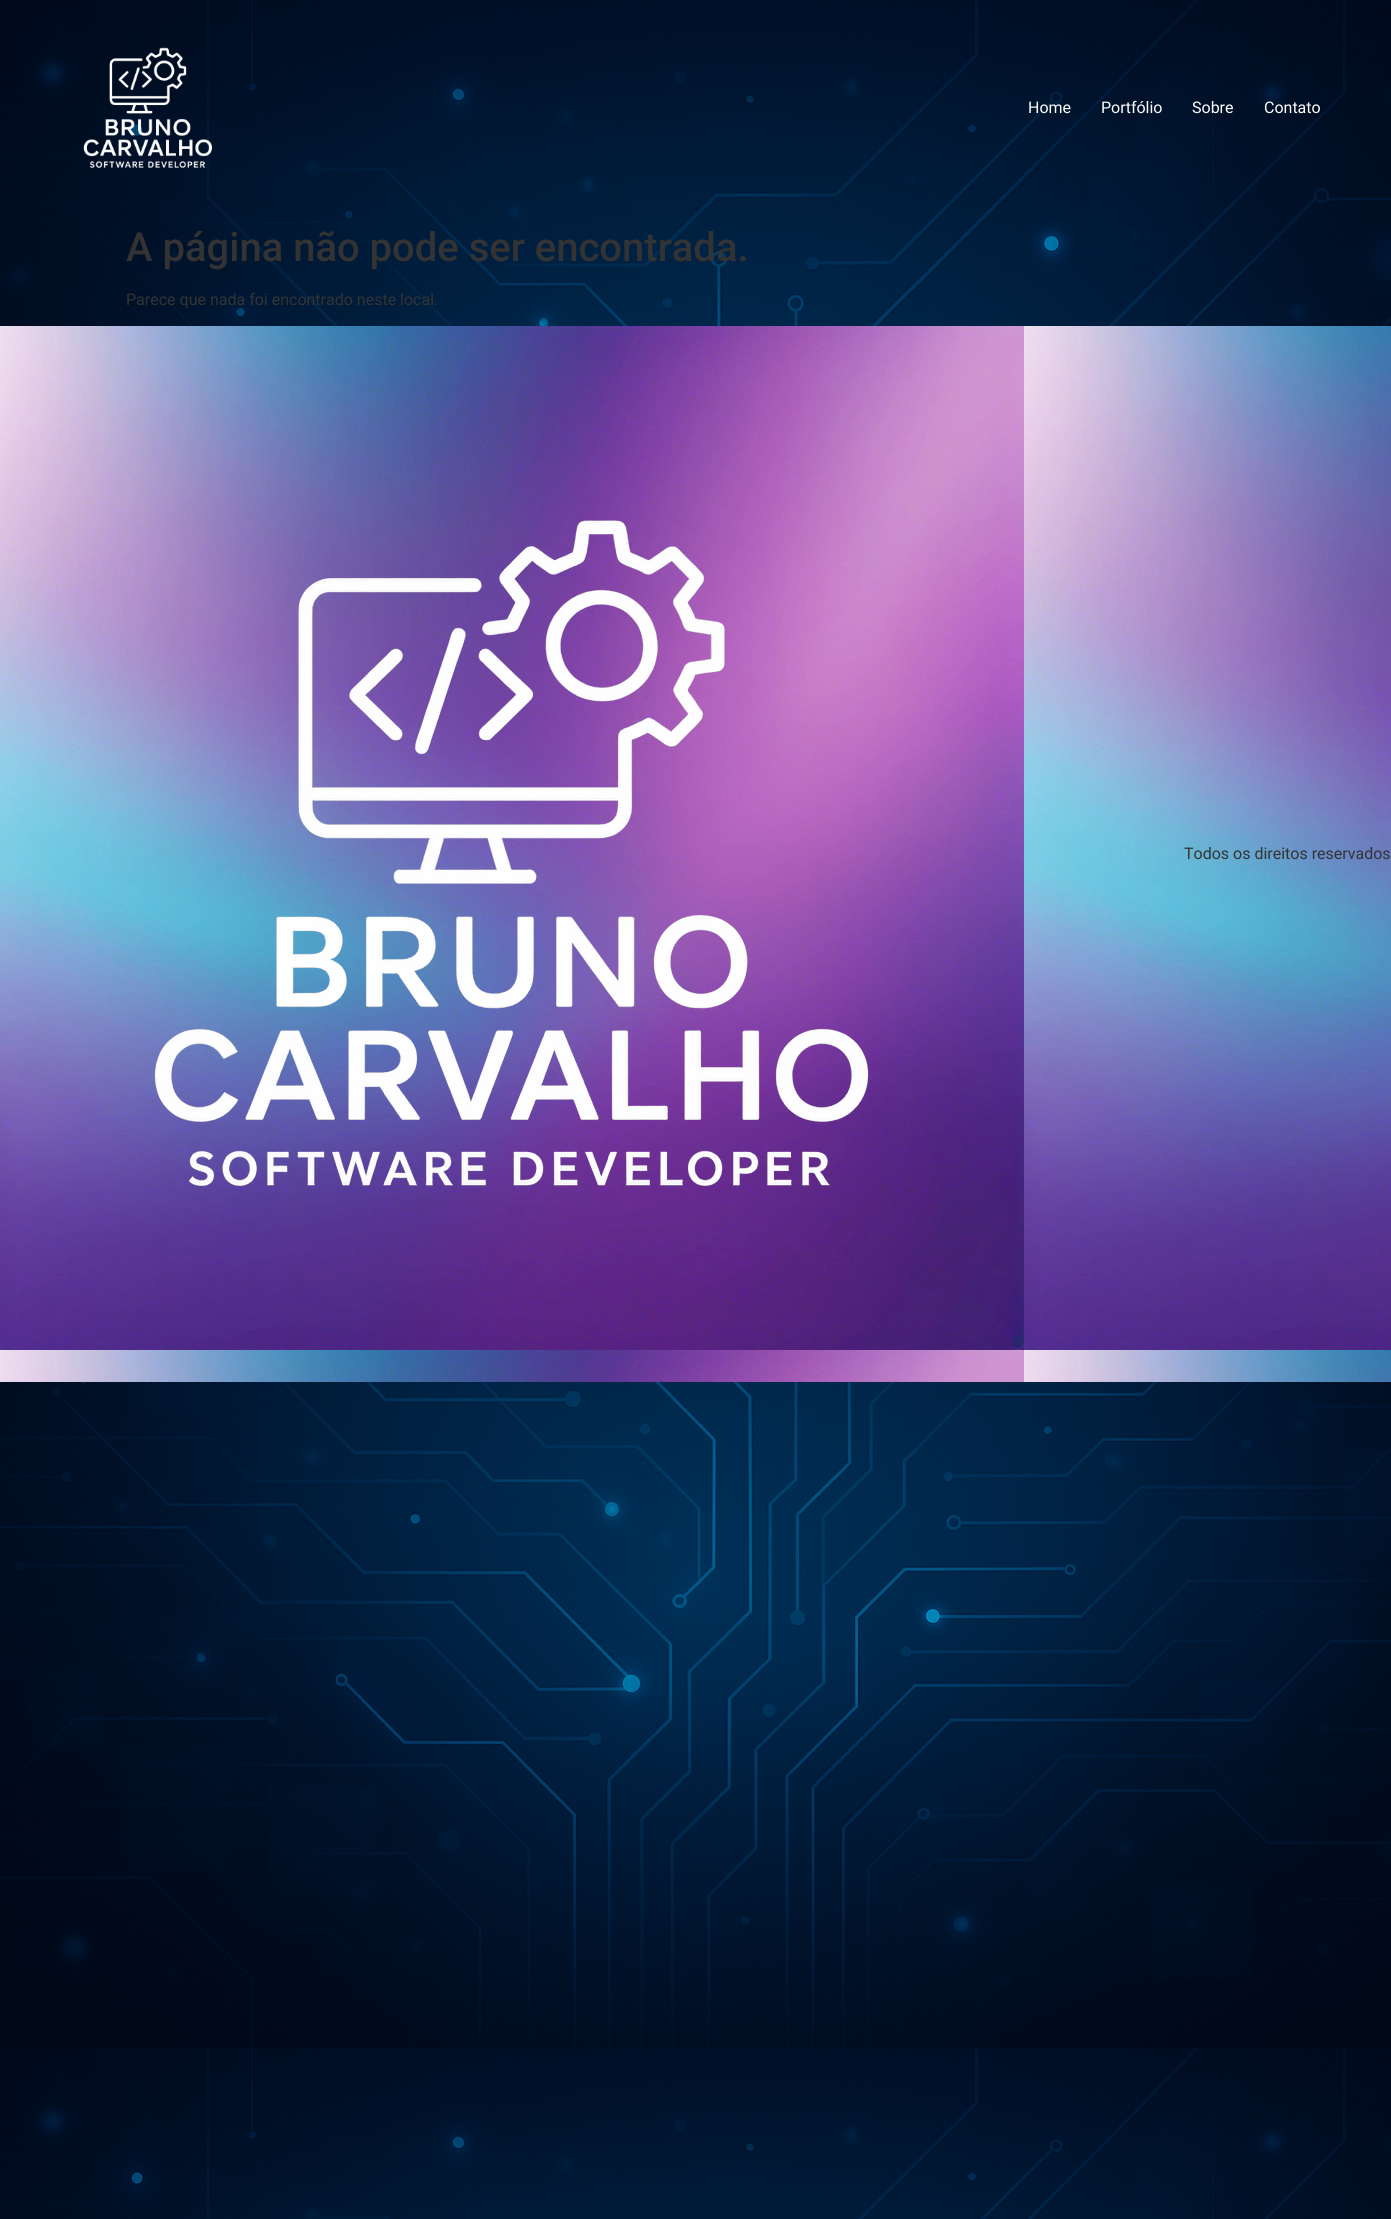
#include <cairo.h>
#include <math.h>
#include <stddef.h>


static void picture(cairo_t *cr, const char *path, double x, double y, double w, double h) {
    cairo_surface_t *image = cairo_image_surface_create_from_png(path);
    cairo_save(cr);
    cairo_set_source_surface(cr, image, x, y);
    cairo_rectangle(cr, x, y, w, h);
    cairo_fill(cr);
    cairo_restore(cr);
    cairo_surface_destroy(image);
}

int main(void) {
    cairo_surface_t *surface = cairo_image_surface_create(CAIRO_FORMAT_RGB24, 1391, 2219);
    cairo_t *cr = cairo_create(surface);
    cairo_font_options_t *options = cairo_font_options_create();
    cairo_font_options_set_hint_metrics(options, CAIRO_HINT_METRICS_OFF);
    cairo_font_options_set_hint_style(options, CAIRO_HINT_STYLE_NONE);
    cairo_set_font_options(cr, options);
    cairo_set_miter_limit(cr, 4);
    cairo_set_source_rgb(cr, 1, 1, 1);
    cairo_paint(cr);
    picture(cr, "img1.png", 0, 0, 1391, 2219);
    picture(cr, "img2.png", 83, 47, 129, 121);
    cairo_select_font_face(cr, "Roboto", CAIRO_FONT_SLANT_NORMAL, CAIRO_FONT_WEIGHT_NORMAL);
    cairo_set_font_size(cr, 16);
    cairo_set_source_rgb(cr, 1, 1, 1);
    cairo_move_to(cr, 1028, 113);
    cairo_show_text(cr, "Home");
    cairo_move_to(cr, 1101, 113);
    cairo_show_text(cr, "Portfólio");
    cairo_move_to(cr, 1192, 113);
    cairo_show_text(cr, "Sobre");
    cairo_move_to(cr, 1264, 113);
    cairo_show_text(cr, "Contato");
    cairo_select_font_face(cr, "Roboto Medium", CAIRO_FONT_SLANT_NORMAL, CAIRO_FONT_WEIGHT_NORMAL);
    cairo_set_font_size(cr, 40);
    cairo_set_source_rgb(cr, 0.2, 0.2, 0.2);
    cairo_move_to(cr, 126, 261);
    cairo_show_text(cr, "A página não pode ser encontrada.");
    cairo_select_font_face(cr, "Roboto", CAIRO_FONT_SLANT_NORMAL, CAIRO_FONT_WEIGHT_NORMAL);
    cairo_set_font_size(cr, 16);
    cairo_move_to(cr, 126, 305);
    cairo_show_text(cr, "Parece que nada foi encontrado neste local.");
    picture(cr, "img3.png", 0, 326, 1391, 1056);
    picture(cr, "img4.png", 154, 520, 715, 668);
    cairo_move_to(cr, 1184, 859);
    cairo_show_text(cr, "Todos os direitos reservados");
    cairo_surface_write_to_png(surface, "page.png");
    cairo_font_options_destroy(options);
    cairo_destroy(cr);
    cairo_surface_destroy(surface);
    return 0;
}
